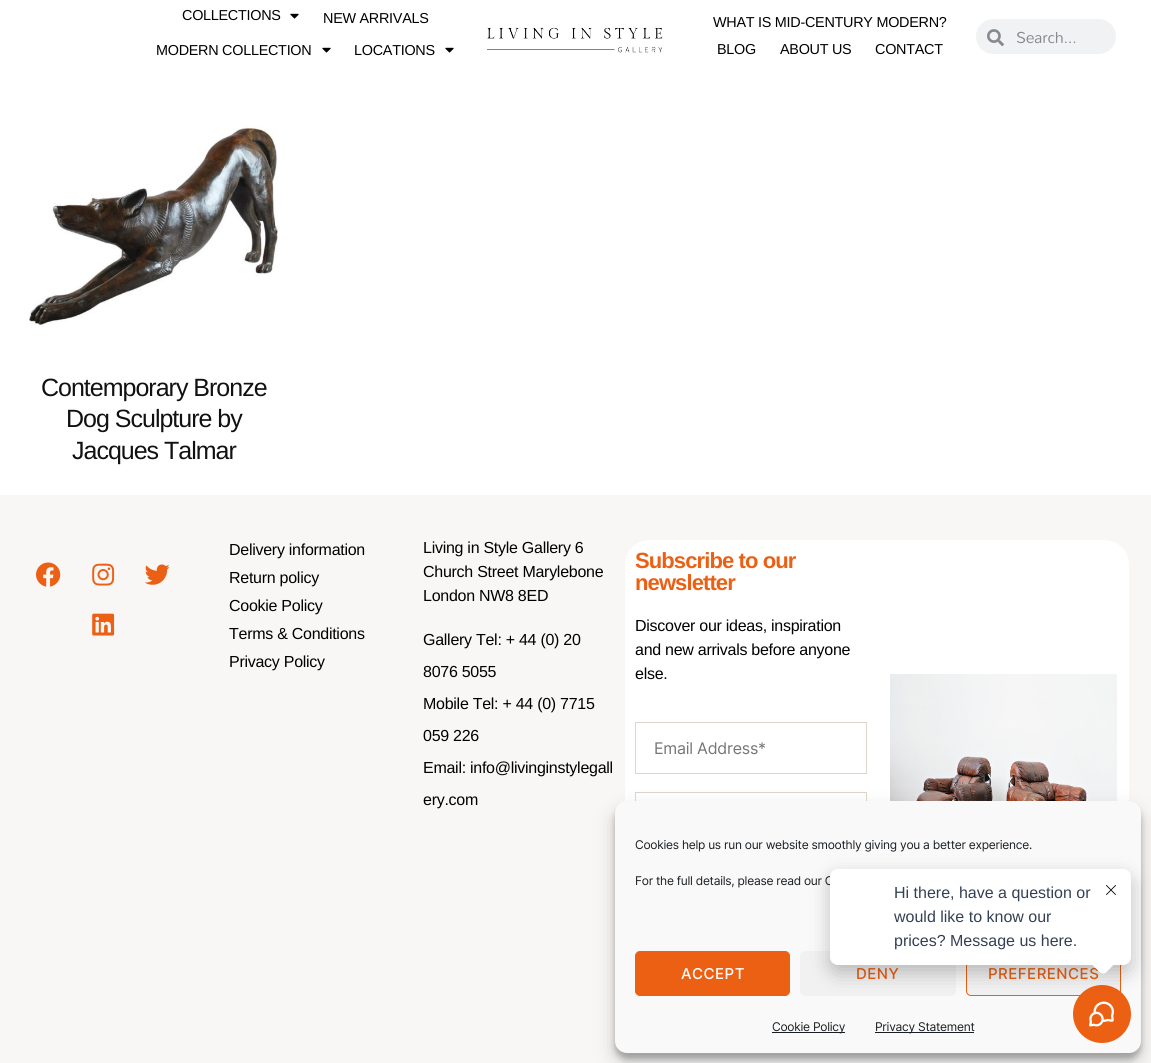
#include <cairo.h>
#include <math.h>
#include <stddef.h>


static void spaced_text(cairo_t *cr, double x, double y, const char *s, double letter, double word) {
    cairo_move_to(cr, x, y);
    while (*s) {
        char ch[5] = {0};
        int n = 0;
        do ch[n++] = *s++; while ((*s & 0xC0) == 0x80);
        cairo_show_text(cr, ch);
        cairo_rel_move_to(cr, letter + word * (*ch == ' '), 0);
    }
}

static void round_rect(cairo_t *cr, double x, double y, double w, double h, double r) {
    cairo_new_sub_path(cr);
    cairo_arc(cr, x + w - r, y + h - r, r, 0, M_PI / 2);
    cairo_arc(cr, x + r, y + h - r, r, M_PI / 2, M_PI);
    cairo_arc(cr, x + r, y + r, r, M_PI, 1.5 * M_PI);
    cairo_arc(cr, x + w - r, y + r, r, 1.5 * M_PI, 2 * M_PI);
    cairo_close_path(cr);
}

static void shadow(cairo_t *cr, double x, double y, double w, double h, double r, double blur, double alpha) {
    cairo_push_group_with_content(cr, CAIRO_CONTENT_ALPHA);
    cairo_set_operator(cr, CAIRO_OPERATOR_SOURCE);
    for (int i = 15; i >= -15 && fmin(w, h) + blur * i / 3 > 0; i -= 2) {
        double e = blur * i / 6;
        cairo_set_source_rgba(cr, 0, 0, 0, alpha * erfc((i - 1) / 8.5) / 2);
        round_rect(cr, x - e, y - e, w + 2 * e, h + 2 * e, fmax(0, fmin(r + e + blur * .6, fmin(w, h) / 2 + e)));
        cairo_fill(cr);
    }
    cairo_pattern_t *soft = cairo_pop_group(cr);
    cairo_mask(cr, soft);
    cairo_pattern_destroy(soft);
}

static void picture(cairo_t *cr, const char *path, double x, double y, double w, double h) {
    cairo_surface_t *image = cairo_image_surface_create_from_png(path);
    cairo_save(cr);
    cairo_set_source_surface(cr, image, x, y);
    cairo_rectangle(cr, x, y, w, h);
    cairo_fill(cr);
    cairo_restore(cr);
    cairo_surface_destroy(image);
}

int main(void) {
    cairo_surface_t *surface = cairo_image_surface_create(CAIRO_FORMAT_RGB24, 1151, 1063);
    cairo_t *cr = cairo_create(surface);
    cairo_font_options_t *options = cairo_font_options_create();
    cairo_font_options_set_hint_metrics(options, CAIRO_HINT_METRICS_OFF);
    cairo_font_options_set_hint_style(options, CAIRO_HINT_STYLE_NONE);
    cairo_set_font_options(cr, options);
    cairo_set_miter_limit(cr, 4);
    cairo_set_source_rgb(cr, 1, 1, 1);
    cairo_paint(cr);
    cairo_select_font_face(cr, "Liberation Sans", CAIRO_FONT_SLANT_NORMAL, CAIRO_FONT_WEIGHT_NORMAL);
    cairo_set_font_size(cr, 14.4);
    cairo_set_source_rgb(cr, 0, 0, 0);
    spaced_text(cr, 182, 20, "COLLECTIONS", -0.27, 0);
    picture(cr, "img1.png", 290, 13, 9, 6);
    spaced_text(cr, 323, 23, "NEW ARRIVALS", -0.27, 0);
    spaced_text(cr, 156, 55, "MODERN COLLECTION", -0.27, 0);
    picture(cr, "img1.png", 322, 47, 9, 6);
    spaced_text(cr, 354, 55, "LOCATIONS", -0.27, 0);
    picture(cr, "img1.png", 445, 47, 9, 6);
    picture(cr, "img2.png", 487, 27, 176, 26);
    spaced_text(cr, 713, 27, "WHAT IS MID-CENTURY MODERN?", -0.27, 0);
    spaced_text(cr, 717, 54, "BLOG", -0.27, 0);
    spaced_text(cr, 780, 54, "ABOUT US", -0.27, 0);
    spaced_text(cr, 875, 54, "CONTACT", -0.27, 0);
    cairo_set_source_rgb(cr, 0.945, 0.949, 0.953);
    round_rect(cr, 976, 19, 140, 35, 17.5);
    cairo_fill(cr);
    picture(cr, "img3.png", 987, 29, 17, 17);
    cairo_select_font_face(cr, "Mandali", CAIRO_FONT_SLANT_NORMAL, CAIRO_FONT_WEIGHT_NORMAL);
    cairo_set_font_size(cr, 16);
    cairo_set_source_rgb(cr, 0.525, 0.541, 0.557);
    spaced_text(cr, 1016, 43, "Search...", -0.25, 0);
    picture(cr, "img4.png", 28, 124, 253, 203);
    cairo_select_font_face(cr, "Liberation Sans", CAIRO_FONT_SLANT_NORMAL, CAIRO_FONT_WEIGHT_NORMAL);
    cairo_set_font_size(cr, 25);
    cairo_set_source_rgb(cr, 0.067, 0.067, 0.067);
    spaced_text(cr, 41, 396, "Contemporary Bronze", -1, 0);
    spaced_text(cr, 66, 427, "Dog Sculpture by", -1, 0);
    spaced_text(cr, 72, 459, "Jacques Talmar", -1, 0);
    cairo_set_source_rgb(cr, 0.969, 0.965, 0.961);
    cairo_rectangle(cr, 0, 495, 1151, 568);
    cairo_fill(cr);
    picture(cr, "img5.png", 36, 562, 25, 25);
    picture(cr, "img6.png", 92, 563, 23, 23);
    picture(cr, "img7.png", 144, 564, 26, 21);
    picture(cr, "img8.png", 92, 613, 23, 23);
    cairo_set_font_size(cr, 16);
    cairo_set_source_rgb(cr, 0, 0, 0);
    spaced_text(cr, 229, 555, "Delivery information", -0.27, 0);
    spaced_text(cr, 229, 583, "Return policy", -0.27, 0);
    spaced_text(cr, 229, 611, "Cookie Policy", -0.27, 0);
    spaced_text(cr, 229, 639, "Terms & Conditions", -0.27, 0);
    spaced_text(cr, 229, 667, "Privacy Policy", -0.27, 0);
    spaced_text(cr, 423, 553, "Living in Style Gallery 6", -0.27, 0);
    spaced_text(cr, 423, 577, "Church Street Marylebone", -0.27, 0);
    spaced_text(cr, 423, 601, "London NW8 8ED", -0.27, 0);
    spaced_text(cr, 423, 645, "Gallery Tel: + 44 (0) 20", -0.27, 0);
    spaced_text(cr, 423, 677, "8076 5055", -0.27, 0);
    spaced_text(cr, 423, 709, "Mobile Tel: + 44 (0) 7715", -0.27, 0);
    spaced_text(cr, 423, 741, "059 226", -0.27, 0);
    spaced_text(cr, 423, 773, "Email: info@livinginstylegall", -0.27, 0);
    spaced_text(cr, 423, 805, "ery.com", -0.27, 0);
    cairo_set_source_rgb(cr, 1, 1, 1);
    cairo_new_path(cr);
    cairo_move_to(cr, 650, 540);
    cairo_line_to(cr, 1104, 540);
    cairo_curve_to(cr, 1118, 540, 1129, 551, 1129, 564);
    cairo_line_to(cr, 1129, 995);
    cairo_curve_to(cr, 1129, 1008, 1118, 1019, 1104, 1019);
    cairo_line_to(cr, 650, 1019);
    cairo_curve_to(cr, 636, 1019, 625, 1008, 625, 995);
    cairo_line_to(cr, 625, 564);
    cairo_curve_to(cr, 625, 551, 636, 540, 650, 540);
    cairo_close_path(cr);
    cairo_fill(cr);
    cairo_select_font_face(cr, "Liberation Sans", CAIRO_FONT_SLANT_NORMAL, CAIRO_FONT_WEIGHT_BOLD);
    cairo_set_font_size(cr, 22);
    cairo_set_source_rgb(cr, 0.922, 0.376, 0.082);
    spaced_text(cr, 635, 568, "Subscribe to our", -0.9, 0);
    spaced_text(cr, 635, 590, "newsletter", -0.9, 0);
    cairo_select_font_face(cr, "Liberation Sans", CAIRO_FONT_SLANT_NORMAL, CAIRO_FONT_WEIGHT_NORMAL);
    cairo_set_font_size(cr, 16);
    cairo_set_source_rgb(cr, 0, 0, 0);
    spaced_text(cr, 635, 631, "Discover our ideas, inspiration", -0.27, 0);
    spaced_text(cr, 635, 655, "and new arrivals before anyone", -0.27, 0);
    spaced_text(cr, 635, 679, "else.", -0.27, 0);
    cairo_rectangle(cr, 635.5, 722.5, 231, 51);
    cairo_set_source_rgb(cr, 0.863, 0.843, 0.792);
    cairo_set_line_width(cr, 1);
    cairo_stroke(cr);
    cairo_select_font_face(cr, "Inter", CAIRO_FONT_SLANT_NORMAL, CAIRO_FONT_WEIGHT_NORMAL);
    cairo_set_source_rgb(cr, 0.459, 0.459, 0.459);
    spaced_text(cr, 654, 754, "Email Address*", -0.25, 0);
    cairo_rectangle(cr, 635.5, 792.5, 231, 51);
    cairo_set_source_rgb(cr, 0.863, 0.843, 0.792);
    cairo_stroke(cr);
    picture(cr, "img9.png", 890, 674, 227, 127);
    cairo_set_source_rgb(cr, 0, 0, 0);
    shadow(cr, 615, 807, 526, 252, 12, 3, 0.23);
    shadow(cr, 615, 811, 526, 252, 12, 10, 0.19);
    cairo_set_source_rgb(cr, 0.976, 0.976, 0.976);
    round_rect(cr, 615, 801, 526, 252, 12);
    cairo_fill(cr);
    cairo_set_font_size(cr, 12);
    cairo_set_source_rgb(cr, 0.098, 0.118, 0.137);
    spaced_text(cr, 635, 849, "Cookies help us run our website smoothly giving you a better experience.", -0.27, 0);
    spaced_text(cr, 635, 885, "For the full details, please read our C", -0.27, 0);
    cairo_set_source_rgb(cr, 0.922, 0.376, 0.082);
    round_rect(cr, 635.5, 951.5, 154, 44, 4.5);
    cairo_fill_preserve(cr);
    cairo_stroke(cr);
    cairo_select_font_face(cr, "Inter Medium", CAIRO_FONT_SLANT_NORMAL, CAIRO_FONT_WEIGHT_NORMAL);
    cairo_set_font_size(cr, 15);
    cairo_set_source_rgb(cr, 1, 1, 1);
    spaced_text(cr, 681, 979, "ACCEPT", 0.5, 0);
    cairo_set_source_rgb(cr, 0.945, 0.945, 0.945);
    round_rect(cr, 800, 951, 156, 45, 5);
    cairo_fill(cr);
    cairo_set_source_rgb(cr, 0.922, 0.376, 0.082);
    spaced_text(cr, 856, 979, "DENY", 0.5, 0);
    cairo_set_source_rgb(cr, 0.945, 0.945, 0.945);
    round_rect(cr, 966.5, 951.5, 154, 44, 4.5);
    cairo_fill_preserve(cr);
    cairo_set_source_rgb(cr, 0.922, 0.376, 0.082);
    cairo_stroke(cr);
    spaced_text(cr, 988, 979, "PREFERENCES", 0.5, 0);
    cairo_set_source_rgb(cr, 0.098, 0.118, 0.137);
    cairo_rectangle(cr, 772, 1032, 73, 1);
    cairo_fill(cr);
    cairo_select_font_face(cr, "Inter", CAIRO_FONT_SLANT_NORMAL, CAIRO_FONT_WEIGHT_NORMAL);
    cairo_set_font_size(cr, 12);
    spaced_text(cr, 772, 1031, "Cookie Policy", -0.27, 0);
    cairo_rectangle(cr, 875, 1032, 99, 1);
    cairo_fill(cr);
    spaced_text(cr, 875, 1031, "Privacy Statement", -0.27, 0);
    cairo_set_source_rgb(cr, 0.922, 0.376, 0.082);
    cairo_new_path(cr);
    cairo_arc(cr, 1102, 1014, 29, 0, 2 * M_PI);
    cairo_fill(cr);
    picture(cr, "img11.png", 1089, 1001, 25, 26);
    cairo_set_source_rgb(cr, 0, 0, 0);
    shadow(cr, 830, 877, 301, 96, 8, 10, 0.24);
    cairo_set_source_rgb(cr, 1, 1, 1);
    round_rect(cr, 830, 869, 301, 96, 8);
    cairo_fill(cr);
    cairo_select_font_face(cr, "Liberation Sans", CAIRO_FONT_SLANT_NORMAL, CAIRO_FONT_WEIGHT_NORMAL);
    cairo_set_font_size(cr, 16);
    cairo_set_source_rgb(cr, 0.204, 0.251, 0.329);
    cairo_move_to(cr, 894, 898);
    cairo_show_text(cr, "Hi there, have a question or");
    cairo_move_to(cr, 894, 922);
    cairo_show_text(cr, "would like to know our");
    cairo_move_to(cr, 894, 946);
    cairo_show_text(cr, "prices? Message us here.");
    cairo_set_source_rgb(cr, 1, 1, 1);
    cairo_new_path(cr);
    cairo_move_to(cr, 1106, 949.5);
    cairo_line_to(cr, 1114.5, 958);
    cairo_curve_to(cr, 1116, 959.5, 1116, 962.5, 1114.5, 964);
    cairo_line_to(cr, 1106, 972.5);
    cairo_curve_to(cr, 1104.5, 974, 1101.5, 974, 1100, 972.5);
    cairo_line_to(cr, 1091.5, 964);
    cairo_curve_to(cr, 1090, 962.5, 1090, 959.5, 1091.5, 958);
    cairo_line_to(cr, 1100, 949.5);
    cairo_curve_to(cr, 1101.5, 948, 1104.5, 948, 1106, 949.5);
    cairo_close_path(cr);
    cairo_fill(cr);
    picture(cr, "img10.png", 1106, 885, 10, 10);
    cairo_surface_write_to_png(surface, "page.png");
    cairo_font_options_destroy(options);
    cairo_destroy(cr);
    cairo_surface_destroy(surface);
    return 0;
}
